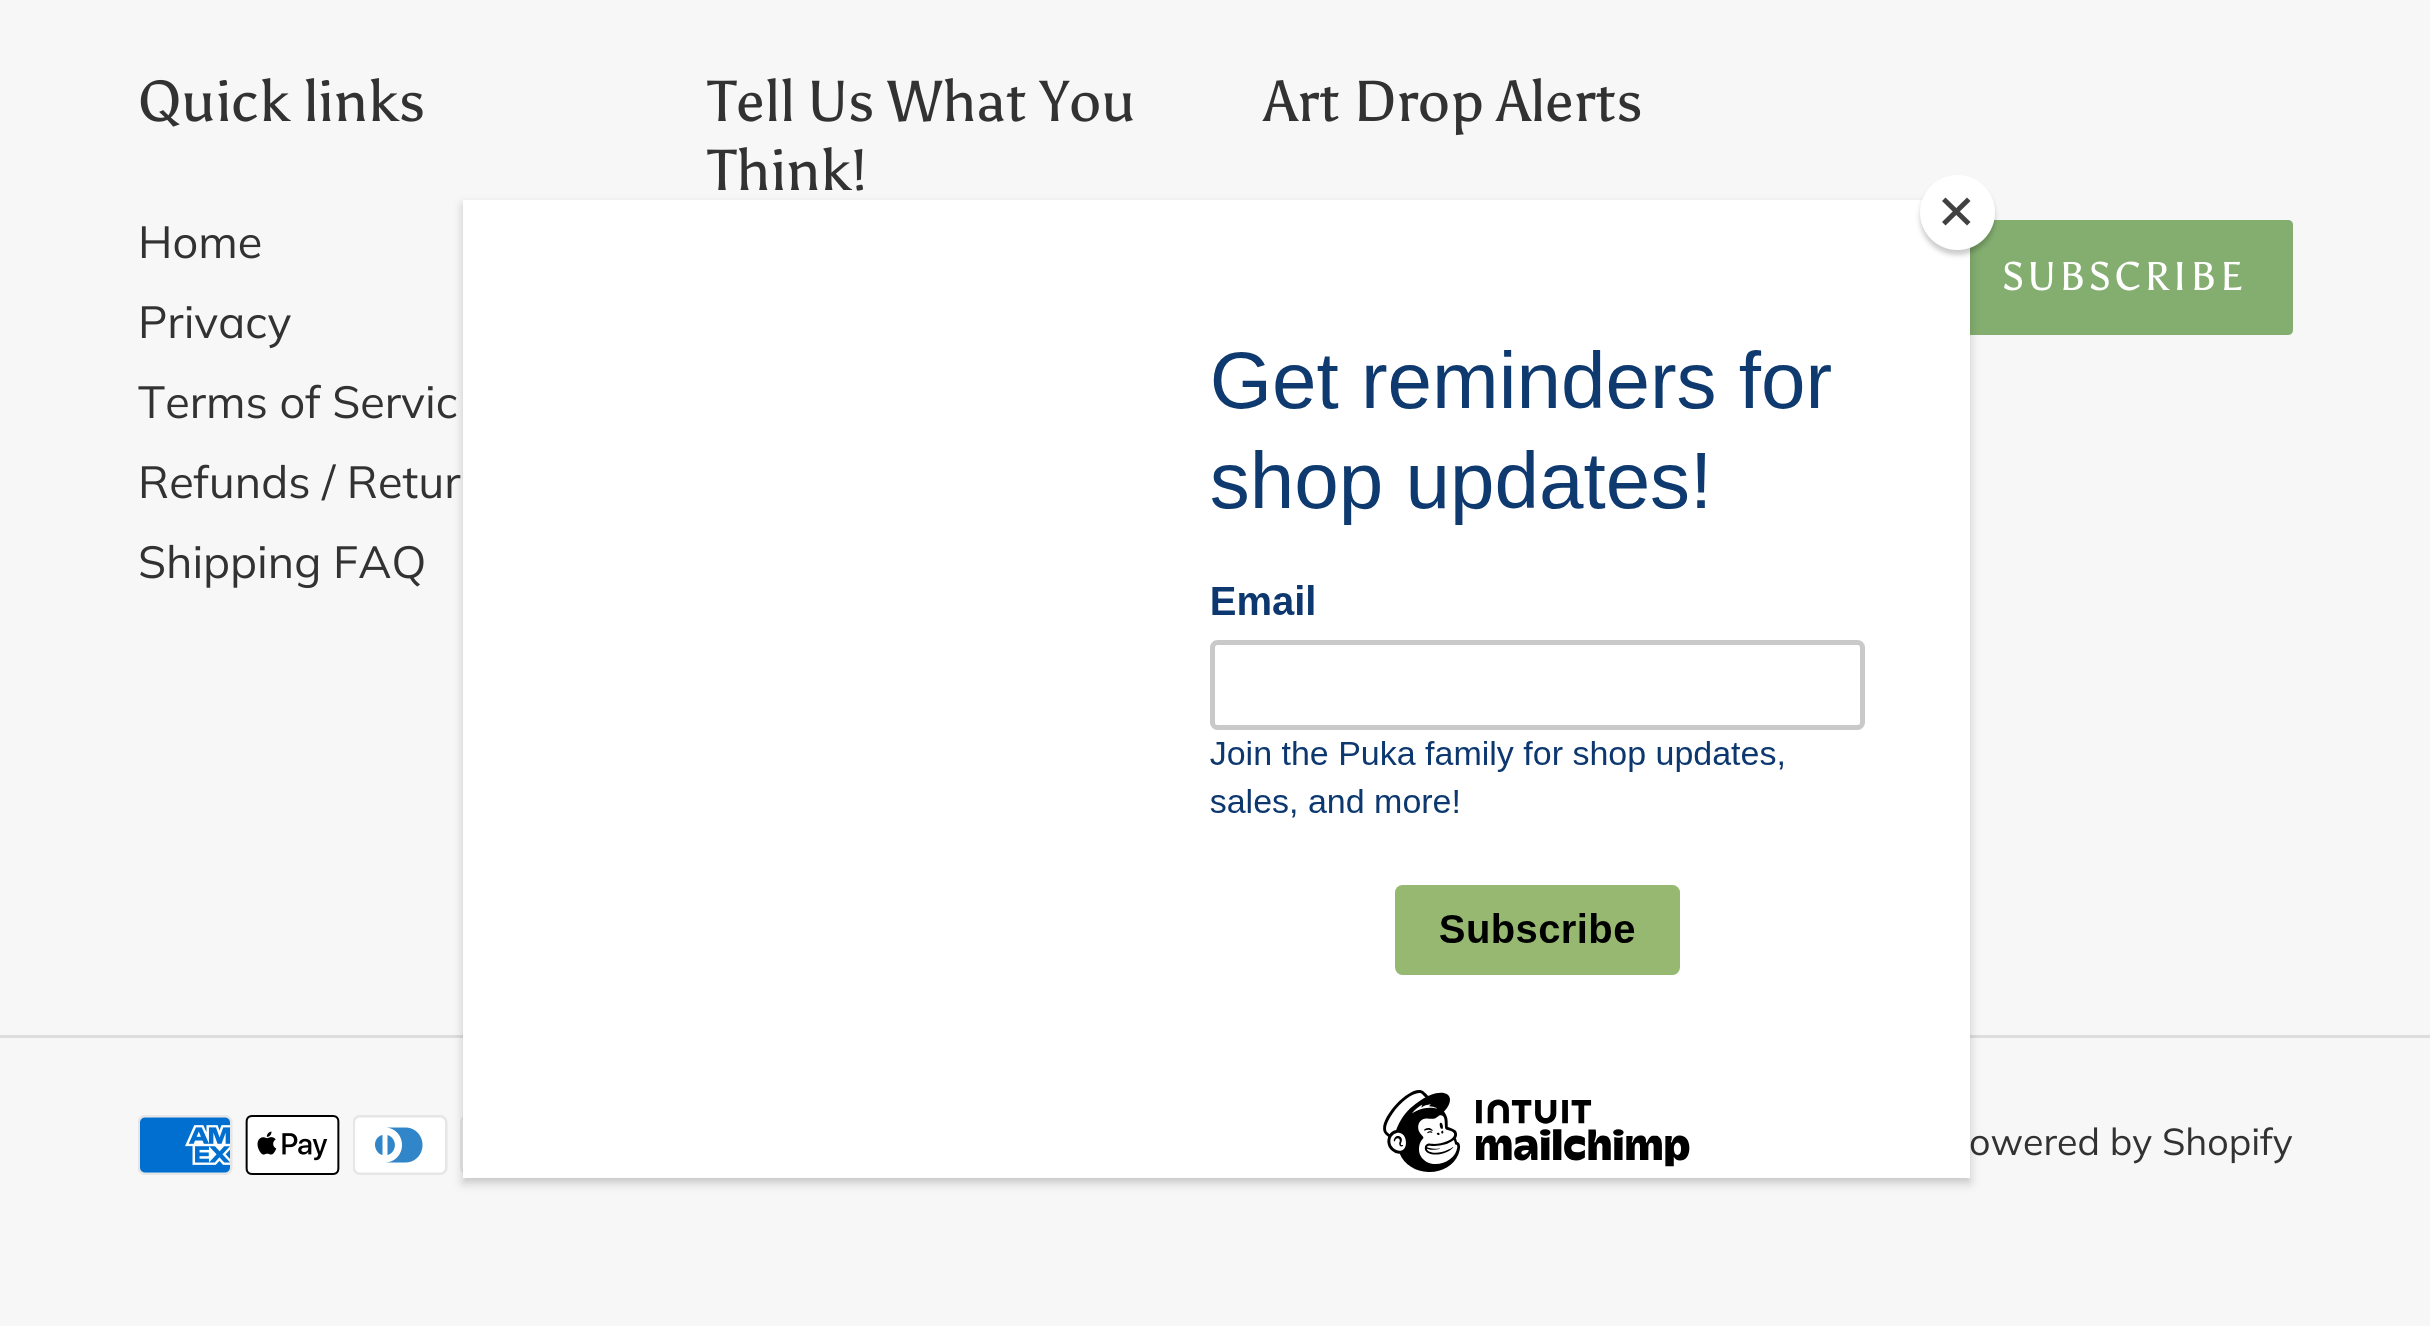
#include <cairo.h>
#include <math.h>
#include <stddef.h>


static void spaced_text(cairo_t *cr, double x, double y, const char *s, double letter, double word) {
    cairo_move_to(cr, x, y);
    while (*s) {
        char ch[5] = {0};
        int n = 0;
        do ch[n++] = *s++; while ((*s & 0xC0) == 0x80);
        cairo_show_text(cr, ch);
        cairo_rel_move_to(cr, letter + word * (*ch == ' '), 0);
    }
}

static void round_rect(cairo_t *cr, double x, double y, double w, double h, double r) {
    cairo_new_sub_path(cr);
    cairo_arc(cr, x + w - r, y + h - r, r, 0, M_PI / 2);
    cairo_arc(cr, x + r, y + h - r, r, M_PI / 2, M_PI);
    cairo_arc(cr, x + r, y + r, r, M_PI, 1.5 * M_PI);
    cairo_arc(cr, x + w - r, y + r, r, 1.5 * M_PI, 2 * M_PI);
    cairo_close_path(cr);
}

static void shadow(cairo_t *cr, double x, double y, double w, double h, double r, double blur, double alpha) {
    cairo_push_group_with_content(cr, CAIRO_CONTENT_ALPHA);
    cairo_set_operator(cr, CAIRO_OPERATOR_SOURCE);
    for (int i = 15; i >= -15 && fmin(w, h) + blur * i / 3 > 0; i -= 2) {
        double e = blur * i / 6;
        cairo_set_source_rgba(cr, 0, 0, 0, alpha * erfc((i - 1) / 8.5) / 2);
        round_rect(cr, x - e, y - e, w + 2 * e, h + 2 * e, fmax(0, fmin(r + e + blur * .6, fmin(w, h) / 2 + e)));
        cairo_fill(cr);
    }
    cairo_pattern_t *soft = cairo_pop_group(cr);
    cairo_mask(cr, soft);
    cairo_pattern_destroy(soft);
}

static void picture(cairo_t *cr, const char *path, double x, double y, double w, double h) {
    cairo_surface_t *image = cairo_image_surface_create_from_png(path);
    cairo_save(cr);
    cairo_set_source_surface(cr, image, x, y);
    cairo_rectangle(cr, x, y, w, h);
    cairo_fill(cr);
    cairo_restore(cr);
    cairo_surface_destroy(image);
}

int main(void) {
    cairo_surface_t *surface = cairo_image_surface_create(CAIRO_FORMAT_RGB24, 2430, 1326);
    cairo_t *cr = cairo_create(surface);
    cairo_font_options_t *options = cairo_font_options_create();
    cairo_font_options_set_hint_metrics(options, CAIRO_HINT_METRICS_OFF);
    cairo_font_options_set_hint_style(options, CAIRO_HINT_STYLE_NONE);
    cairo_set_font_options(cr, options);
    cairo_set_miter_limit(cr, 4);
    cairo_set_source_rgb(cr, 0.965, 0.965, 0.965);
    cairo_paint(cr);
    cairo_select_font_face(cr, "Asul", CAIRO_FONT_SLANT_NORMAL, CAIRO_FONT_WEIGHT_NORMAL);
    cairo_set_font_size(cr, 57.5);
    cairo_set_source_rgb(cr, 0.2, 0.196, 0.196);
    cairo_move_to(cr, 138, 121);
    cairo_show_text(cr, "Quick links");
    cairo_select_font_face(cr, "Muli", CAIRO_FONT_SLANT_NORMAL, CAIRO_FONT_WEIGHT_NORMAL);
    cairo_set_font_size(cr, 45);
    cairo_move_to(cr, 138, 258);
    cairo_show_text(cr, "Home");
    cairo_move_to(cr, 138, 338);
    cairo_show_text(cr, "Privacy");
    cairo_move_to(cr, 138, 418);
    cairo_show_text(cr, "Terms of Servic");
    cairo_move_to(cr, 138, 498);
    cairo_show_text(cr, "Refunds / Retur");
    cairo_move_to(cr, 138, 578);
    cairo_show_text(cr, "Shipping FAQ");
    cairo_select_font_face(cr, "Asul", CAIRO_FONT_SLANT_NORMAL, CAIRO_FONT_WEIGHT_NORMAL);
    cairo_set_font_size(cr, 57.5);
    cairo_move_to(cr, 708, 121);
    cairo_show_text(cr, "Tell Us What You");
    cairo_move_to(cr, 708, 190);
    cairo_show_text(cr, "Think!");
    cairo_move_to(cr, 1264, 121);
    cairo_show_text(cr, "Art Drop Alerts");
    cairo_set_source_rgb(cr, 0.514, 0.682, 0.435);
    cairo_new_path(cr);
    cairo_move_to(cr, 1955, 220);
    cairo_line_to(cr, 2288, 220);
    cairo_curve_to(cr, 2291, 220, 2293, 222, 2293, 225);
    cairo_line_to(cr, 2293, 330);
    cairo_curve_to(cr, 2293, 333, 2291, 335, 2288, 335);
    cairo_line_to(cr, 1955, 335);
    cairo_close_path(cr);
    cairo_fill(cr);
    cairo_set_font_size(cr, 40);
    cairo_set_source_rgb(cr, 1, 1, 1);
    spaced_text(cr, 2002, 290, "SUBSCRIBE", 3.25, 0);
    cairo_set_source_rgb(cr, 0.867, 0.867, 0.867);
    cairo_rectangle(cr, 0, 1035, 2430, 3);
    cairo_fill(cr);
    picture(cr, "img1.png", 138, 1115, 95, 60);
    picture(cr, "img2.png", 245, 1115, 95, 60);
    picture(cr, "img3.png", 353, 1115, 95, 60);
    picture(cr, "img4.png", 460, 1117, 3, 56);
    cairo_select_font_face(cr, "Muli", CAIRO_FONT_SLANT_NORMAL, CAIRO_FONT_WEIGHT_NORMAL);
    cairo_set_font_size(cr, 37.5);
    cairo_set_source_rgb(cr, 0.2, 0.196, 0.196);
    cairo_move_to(cr, 1969, 1155);
    cairo_show_text(cr, "owered by Shopify");
    cairo_set_source_rgb(cr, 0, 0, 0);
    shadow(cr, 463, 205, 1507, 978, 0, 5, 0.2);
    picture(cr, "img5.png", 463, 200, 1507, 978);
    shadow(cr, 1920, 180, 75, 75, 37.5, 2.5, 0.2);
    cairo_set_source_rgb(cr, 1, 1, 1);
    cairo_arc(cr, 1957.5, 212.5, 37.5, 0, 2 * M_PI);
    cairo_fill(cr);
    cairo_set_source_rgb(cr, 0.255, 0.255, 0.255);
    cairo_new_path(cr);
    cairo_move_to(cr, 1967, 197.5);
    cairo_line_to(cr, 1970.5, 201);
    cairo_line_to(cr, 1945.5, 225.5);
    cairo_line_to(cr, 1942, 222);
    cairo_close_path(cr);
    cairo_fill(cr);
    cairo_new_path(cr);
    cairo_move_to(cr, 1942, 201);
    cairo_line_to(cr, 1945.5, 197.5);
    cairo_line_to(cr, 1970.5, 222);
    cairo_line_to(cr, 1967, 225.5);
    cairo_close_path(cr);
    cairo_fill(cr);
    cairo_surface_write_to_png(surface, "page.png");
    cairo_font_options_destroy(options);
    cairo_destroy(cr);
    cairo_surface_destroy(surface);
    return 0;
}
